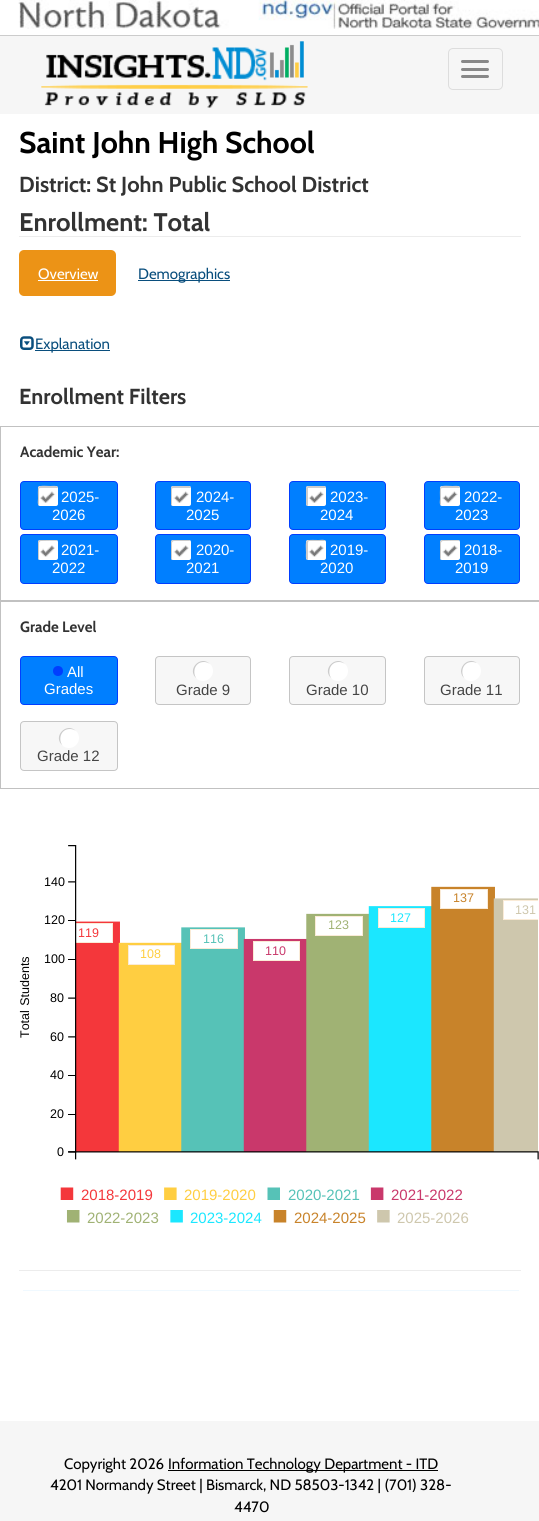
#include <cairo.h>
#include <math.h>
#include <stddef.h>


static void spaced_text(cairo_t *cr, double x, double y, const char *s, double letter, double word) {
    cairo_move_to(cr, x, y);
    while (*s) {
        char ch[5] = {0};
        int n = 0;
        do ch[n++] = *s++; while ((*s & 0xC0) == 0x80);
        cairo_show_text(cr, ch);
        cairo_rel_move_to(cr, letter + word * (*ch == ' '), 0);
    }
}

static void round_rect(cairo_t *cr, double x, double y, double w, double h, double r) {
    cairo_new_sub_path(cr);
    cairo_arc(cr, x + w - r, y + h - r, r, 0, M_PI / 2);
    cairo_arc(cr, x + r, y + h - r, r, M_PI / 2, M_PI);
    cairo_arc(cr, x + r, y + r, r, M_PI, 1.5 * M_PI);
    cairo_arc(cr, x + w - r, y + r, r, 1.5 * M_PI, 2 * M_PI);
    cairo_close_path(cr);
}

static void picture(cairo_t *cr, const char *path, double x, double y, double w, double h) {
    cairo_surface_t *image = cairo_image_surface_create_from_png(path);
    cairo_save(cr);
    cairo_set_source_surface(cr, image, x, y);
    cairo_rectangle(cr, x, y, w, h);
    cairo_fill(cr);
    cairo_restore(cr);
    cairo_surface_destroy(image);
}

int main(void) {
    cairo_surface_t *surface = cairo_image_surface_create(CAIRO_FORMAT_RGB24, 539, 1521);
    cairo_t *cr = cairo_create(surface);
    cairo_font_options_t *options = cairo_font_options_create();
    cairo_font_options_set_hint_metrics(options, CAIRO_HINT_METRICS_OFF);
    cairo_font_options_set_hint_style(options, CAIRO_HINT_STYLE_NONE);
    cairo_set_font_options(cr, options);
    cairo_set_miter_limit(cr, 4);
    cairo_set_source_rgb(cr, 1, 1, 1);
    cairo_paint(cr);
    cairo_set_source_rgb(cr, 0.8, 0.8, 0.8);
    cairo_rectangle(cr, 0, 35, 539, 1);
    cairo_fill(cr);
    picture(cr, "img1.png", 18, 0, 521, 29);
    cairo_set_source_rgb(cr, 0.961, 0.961, 0.961);
    cairo_rectangle(cr, 0, 36, 539, 78);
    cairo_fill(cr);
    picture(cr, "img2.png", 41, 41, 267, 67);
    round_rect(cr, 448.5, 48.5, 54, 41, 4.5);
    cairo_set_source_rgb(cr, 0.867, 0.867, 0.867);
    cairo_set_line_width(cr, 1);
    cairo_stroke(cr);
    cairo_set_source_rgb(cr, 0.533, 0.533, 0.533);
    round_rect(cr, 461, 60, 28, 3, 1.5);
    cairo_fill(cr);
    round_rect(cr, 461, 68, 28, 3, 1.5);
    cairo_fill(cr);
    round_rect(cr, 461, 75, 28, 3, 1.5);
    cairo_fill(cr);
    cairo_select_font_face(cr, "Cabin", CAIRO_FONT_SLANT_NORMAL, CAIRO_FONT_WEIGHT_BOLD);
    cairo_set_font_size(cr, 30);
    cairo_set_source_rgb(cr, 0, 0, 0);
    cairo_move_to(cr, 19, 153);
    cairo_show_text(cr, "Saint John High School");
    cairo_set_font_size(cr, 21.75);
    cairo_set_source_rgb(cr, 0.2, 0.2, 0.2);
    cairo_move_to(cr, 19, 192);
    cairo_show_text(cr, "District: St John Public School District");
    cairo_set_source_rgb(cr, 0.925, 0.925, 0.925);
    cairo_rectangle(cr, 19, 236, 502, 1);
    cairo_fill(cr);
    cairo_set_font_size(cr, 25.5);
    cairo_set_source_rgb(cr, 0.2, 0.2, 0.2);
    cairo_move_to(cr, 19, 231);
    cairo_show_text(cr, "Enrollment: Total");
    cairo_set_source_rgb(cr, 0.922, 0.576, 0.086);
    round_rect(cr, 19, 250, 97, 46, 5);
    cairo_fill(cr);
    cairo_select_font_face(cr, "Cabin", CAIRO_FONT_SLANT_NORMAL, CAIRO_FONT_WEIGHT_NORMAL);
    cairo_set_font_size(cr, 15);
    cairo_set_source_rgb(cr, 1, 1, 1);
    cairo_move_to(cr, 38, 279);
    cairo_show_text(cr, "Overview");
    cairo_rectangle(cr, 38, 280, 60, 1);
    cairo_fill(cr);
    cairo_set_source_rgb(cr, 0.039, 0.306, 0.49);
    cairo_rectangle(cr, 138, 280, 92, 1);
    cairo_fill(cr);
    cairo_move_to(cr, 138, 279);
    cairo_show_text(cr, "Demographics");
    picture(cr, "img3.png", 20, 336, 14, 14);
    cairo_rectangle(cr, 35, 350, 75, 1);
    cairo_fill(cr);
    cairo_move_to(cr, 35, 349);
    cairo_show_text(cr, "Explanation");
    cairo_select_font_face(cr, "Cabin", CAIRO_FONT_SLANT_NORMAL, CAIRO_FONT_WEIGHT_BOLD);
    cairo_set_font_size(cr, 21.75);
    cairo_set_source_rgb(cr, 0.2, 0.2, 0.2);
    cairo_move_to(cr, 19, 404);
    cairo_show_text(cr, "Enrollment Filters");
    cairo_rectangle(cr, 0.5, 426.5, 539, 174);
    cairo_set_source_rgb(cr, 0.757, 0.757, 0.757);
    cairo_stroke(cr);
    cairo_set_font_size(cr, 15);
    cairo_set_source_rgb(cr, 0.2, 0.2, 0.2);
    cairo_move_to(cr, 20, 457);
    cairo_show_text(cr, "Academic Year:");
    cairo_set_source_rgb(cr, 0, 0.498, 1);
    round_rect(cr, 20.5, 481.5, 97, 48, 3.5);
    cairo_fill_preserve(cr);
    cairo_set_source_rgb(cr, 0, 0.243, 1);
    cairo_stroke(cr);
    cairo_set_source_rgb(cr, 1, 1, 1);
    round_rect(cr, 38, 486, 20, 20, 2);
    cairo_fill(cr);
    picture(cr, "img4.png", 40, 491, 16, 12);
    cairo_set_source_rgb(cr, 0.8, 0.8, 0.8);
    cairo_new_path(cr);
    cairo_move_to(cr, 41, 488);
    cairo_line_to(cr, 58, 488);
    cairo_curve_to(cr, 58, 485, 52.5, 486, 50.5, 486);
    cairo_curve_to(cr, 48.5, 486, 39.5, 485, 38.5, 487);
    cairo_curve_to(cr, 37.5, 488, 38, 496.5, 38, 498.5);
    cairo_curve_to(cr, 38, 500, 37, 504.5, 39, 505.5);
    cairo_line_to(cr, 39, 489);
    cairo_curve_to(cr, 39, 488, 40, 488, 41, 488);
    cairo_close_path(cr);
    cairo_fill(cr);
    cairo_select_font_face(cr, "Liberation Sans", CAIRO_FONT_SLANT_NORMAL, CAIRO_FONT_WEIGHT_NORMAL);
    cairo_set_source_rgb(cr, 1, 1, 1);
    cairo_move_to(cr, 61, 502);
    cairo_show_text(cr, "2025-");
    cairo_move_to(cr, 52, 520);
    cairo_show_text(cr, "2026");
    cairo_set_source_rgb(cr, 0, 0.498, 1);
    round_rect(cr, 155.5, 481.5, 95, 48, 3.5);
    cairo_fill_preserve(cr);
    cairo_set_source_rgb(cr, 0, 0.243, 1);
    cairo_stroke(cr);
    cairo_set_source_rgb(cr, 1, 1, 1);
    round_rect(cr, 171, 486, 20, 20, 2);
    cairo_fill(cr);
    picture(cr, "img5.png", 173, 491, 16, 12);
    cairo_set_source_rgb(cr, 0.8, 0.8, 0.8);
    cairo_new_path(cr);
    cairo_move_to(cr, 174, 488);
    cairo_line_to(cr, 191, 488);
    cairo_curve_to(cr, 191, 487, 190, 486, 189, 486);
    cairo_line_to(cr, 173, 486);
    cairo_curve_to(cr, 172, 486, 171, 487, 171, 488);
    cairo_line_to(cr, 171, 504);
    cairo_curve_to(cr, 171, 504.5, 171.5, 505.5, 172, 505.5);
    cairo_line_to(cr, 172, 489);
    cairo_curve_to(cr, 172, 488, 173, 488, 174, 488);
    cairo_close_path(cr);
    cairo_fill(cr);
    cairo_set_source_rgb(cr, 1, 1, 1);
    cairo_move_to(cr, 196, 502);
    cairo_show_text(cr, "2024-");
    cairo_move_to(cr, 186, 520);
    cairo_show_text(cr, "2025");
    cairo_set_source_rgb(cr, 0, 0.498, 1);
    round_rect(cr, 289.5, 481.5, 96, 48, 3.5);
    cairo_fill_preserve(cr);
    cairo_set_source_rgb(cr, 0, 0.243, 1);
    cairo_stroke(cr);
    cairo_set_source_rgb(cr, 1, 1, 1);
    round_rect(cr, 306, 486, 20, 20, 2);
    cairo_fill(cr);
    picture(cr, "img5.png", 308, 491, 16, 12);
    cairo_set_source_rgb(cr, 0.8, 0.8, 0.8);
    cairo_new_path(cr);
    cairo_move_to(cr, 309, 488);
    cairo_line_to(cr, 326, 488);
    cairo_curve_to(cr, 326, 487, 325, 486, 324, 486);
    cairo_line_to(cr, 308, 486);
    cairo_curve_to(cr, 307, 486, 306, 487, 306, 488);
    cairo_line_to(cr, 306, 504);
    cairo_curve_to(cr, 306, 505, 307, 506, 308, 506);
    cairo_line_to(cr, 308, 488);
    cairo_close_path(cr);
    cairo_fill(cr);
    cairo_set_source_rgb(cr, 1, 1, 1);
    cairo_move_to(cr, 330, 502);
    cairo_show_text(cr, "2023-");
    cairo_move_to(cr, 320, 520);
    cairo_show_text(cr, "2024");
    cairo_set_source_rgb(cr, 0, 0.498, 1);
    round_rect(cr, 424.5, 481.5, 95, 48, 3.5);
    cairo_fill_preserve(cr);
    cairo_set_source_rgb(cr, 0, 0.243, 1);
    cairo_stroke(cr);
    cairo_set_source_rgb(cr, 1, 1, 1);
    round_rect(cr, 440, 486, 20, 20, 2);
    cairo_fill(cr);
    picture(cr, "img6.png", 442, 491, 16, 12);
    cairo_set_source_rgb(cr, 0.8, 0.8, 0.8);
    cairo_new_path(cr);
    cairo_move_to(cr, 443, 488);
    cairo_line_to(cr, 460, 488);
    cairo_curve_to(cr, 460, 485, 454.5, 486, 452.5, 486);
    cairo_curve_to(cr, 450.5, 486, 441.5, 485, 440.5, 487);
    cairo_curve_to(cr, 439.5, 488, 440, 496.5, 440, 498.5);
    cairo_curve_to(cr, 440, 500, 439, 504.5, 441, 505.5);
    cairo_line_to(cr, 441, 489);
    cairo_curve_to(cr, 441, 488, 442, 488, 443, 488);
    cairo_close_path(cr);
    cairo_fill(cr);
    cairo_set_source_rgb(cr, 1, 1, 1);
    cairo_move_to(cr, 464, 502);
    cairo_show_text(cr, "2022-");
    cairo_move_to(cr, 455, 520);
    cairo_show_text(cr, "2023");
    cairo_set_source_rgb(cr, 0, 0.498, 1);
    round_rect(cr, 20.5, 534.5, 97, 49, 3.5);
    cairo_fill_preserve(cr);
    cairo_set_source_rgb(cr, 0, 0.243, 1);
    cairo_stroke(cr);
    cairo_set_source_rgb(cr, 1, 1, 1);
    round_rect(cr, 38, 540, 20, 20, 2);
    cairo_fill(cr);
    picture(cr, "img7.png", 40, 545, 15, 12);
    cairo_set_source_rgb(cr, 0.8, 0.8, 0.8);
    cairo_new_path(cr);
    cairo_move_to(cr, 41, 541);
    cairo_curve_to(cr, 43.5, 541, 56.5, 540.5, 58, 541);
    cairo_curve_to(cr, 57.5, 540.5, 57, 540, 56, 540);
    cairo_line_to(cr, 40, 540);
    cairo_curve_to(cr, 39, 540, 38, 541, 38, 542);
    cairo_line_to(cr, 38, 558);
    cairo_curve_to(cr, 38, 559, 38.5, 559.5, 39, 560);
    cairo_line_to(cr, 39, 559);
    cairo_line_to(cr, 39, 543);
    cairo_curve_to(cr, 39, 542, 40, 541, 41, 541);
    cairo_close_path(cr);
    cairo_fill(cr);
    cairo_set_source_rgb(cr, 1, 1, 1);
    cairo_move_to(cr, 61, 555);
    cairo_show_text(cr, "2021-");
    cairo_move_to(cr, 52, 573);
    cairo_show_text(cr, "2022");
    cairo_set_source_rgb(cr, 0, 0.498, 1);
    round_rect(cr, 155.5, 534.5, 95, 49, 3.5);
    cairo_fill_preserve(cr);
    cairo_set_source_rgb(cr, 0, 0.243, 1);
    cairo_stroke(cr);
    cairo_set_source_rgb(cr, 1, 1, 1);
    round_rect(cr, 171, 540, 20, 20, 2);
    cairo_fill(cr);
    picture(cr, "img8.png", 173, 545, 16, 12);
    cairo_set_source_rgb(cr, 0.8, 0.8, 0.8);
    cairo_new_path(cr);
    cairo_move_to(cr, 174, 541);
    cairo_line_to(cr, 190.5, 541);
    cairo_curve_to(cr, 190.5, 540.5, 189.5, 540, 189, 540);
    cairo_line_to(cr, 173, 540);
    cairo_curve_to(cr, 172, 540, 171, 541, 171, 542);
    cairo_line_to(cr, 171, 558);
    cairo_curve_to(cr, 171, 559, 171.5, 559.5, 172, 560);
    cairo_line_to(cr, 172, 559);
    cairo_line_to(cr, 172, 543);
    cairo_curve_to(cr, 172, 542, 173, 541, 174, 541);
    cairo_close_path(cr);
    cairo_fill(cr);
    cairo_set_source_rgb(cr, 1, 1, 1);
    cairo_move_to(cr, 196, 555);
    cairo_show_text(cr, "2020-");
    cairo_move_to(cr, 186, 573);
    cairo_show_text(cr, "2021");
    cairo_set_source_rgb(cr, 0, 0.498, 1);
    round_rect(cr, 289.5, 534.5, 96, 49, 3.5);
    cairo_fill_preserve(cr);
    cairo_set_source_rgb(cr, 0, 0.243, 1);
    cairo_stroke(cr);
    cairo_set_source_rgb(cr, 1, 1, 1);
    round_rect(cr, 306, 540, 20, 20, 2);
    cairo_fill(cr);
    picture(cr, "img8.png", 308, 545, 16, 12);
    cairo_set_source_rgb(cr, 0.8, 0.8, 0.8);
    cairo_new_path(cr);
    cairo_move_to(cr, 309, 541);
    cairo_line_to(cr, 325.5, 541);
    cairo_curve_to(cr, 324.5, 539, 320, 540, 318.5, 540);
    cairo_curve_to(cr, 316.5, 540, 308, 539.5, 307, 540.5);
    cairo_curve_to(cr, 305, 541.5, 306, 550.5, 306, 552.5);
    cairo_curve_to(cr, 306, 554.5, 305, 560, 308, 560);
    cairo_line_to(cr, 308, 545.5);
    cairo_curve_to(cr, 308, 545.5, 307.5, 541, 309, 541);
    cairo_close_path(cr);
    cairo_fill(cr);
    cairo_set_source_rgb(cr, 1, 1, 1);
    cairo_move_to(cr, 330, 555);
    cairo_show_text(cr, "2019-");
    cairo_move_to(cr, 320, 573);
    cairo_show_text(cr, "2020");
    cairo_set_source_rgb(cr, 0, 0.498, 1);
    round_rect(cr, 424.5, 534.5, 95, 49, 3.5);
    cairo_fill_preserve(cr);
    cairo_set_source_rgb(cr, 0, 0.243, 1);
    cairo_stroke(cr);
    cairo_set_source_rgb(cr, 1, 1, 1);
    round_rect(cr, 440, 540, 20, 20, 2);
    cairo_fill(cr);
    picture(cr, "img9.png", 442, 545, 16, 12);
    cairo_set_source_rgb(cr, 0.8, 0.8, 0.8);
    cairo_new_path(cr);
    cairo_move_to(cr, 443, 541);
    cairo_curve_to(cr, 445.5, 541, 458.5, 540.5, 460, 541);
    cairo_curve_to(cr, 459.5, 540.5, 459, 540, 458, 540);
    cairo_line_to(cr, 442, 540);
    cairo_curve_to(cr, 441, 540, 440, 541, 440, 542);
    cairo_line_to(cr, 440, 558);
    cairo_curve_to(cr, 440, 559, 440.5, 559.5, 441, 560);
    cairo_line_to(cr, 441, 559);
    cairo_line_to(cr, 441, 543);
    cairo_curve_to(cr, 441, 542, 442, 541, 443, 541);
    cairo_close_path(cr);
    cairo_fill(cr);
    cairo_set_source_rgb(cr, 1, 1, 1);
    cairo_move_to(cr, 464, 555);
    cairo_show_text(cr, "2018-");
    cairo_move_to(cr, 455, 573);
    cairo_show_text(cr, "2019");
    cairo_rectangle(cr, 0.5, 601.5, 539, 187);
    cairo_set_source_rgb(cr, 0.757, 0.757, 0.757);
    cairo_stroke(cr);
    cairo_select_font_face(cr, "Cabin", CAIRO_FONT_SLANT_NORMAL, CAIRO_FONT_WEIGHT_BOLD);
    cairo_set_source_rgb(cr, 0.2, 0.2, 0.2);
    cairo_move_to(cr, 20, 632);
    cairo_show_text(cr, "Grade Level");
    cairo_set_source_rgb(cr, 0, 0.498, 1);
    round_rect(cr, 20.5, 656.5, 97, 48, 3.5);
    cairo_fill_preserve(cr);
    cairo_set_source_rgb(cr, 0, 0.243, 1);
    cairo_stroke(cr);
    cairo_arc(cr, 58, 671, 5, 0, 2 * M_PI);
    cairo_fill(cr);
    cairo_select_font_face(cr, "Liberation Sans", CAIRO_FONT_SLANT_NORMAL, CAIRO_FONT_WEIGHT_NORMAL);
    cairo_set_source_rgb(cr, 1, 1, 1);
    cairo_move_to(cr, 67, 677);
    cairo_show_text(cr, "All");
    cairo_move_to(cr, 44, 694);
    cairo_show_text(cr, "Grades");
    cairo_set_source_rgb(cr, 0.965, 0.965, 0.965);
    round_rect(cr, 155.5, 656.5, 95, 48, 3.5);
    cairo_fill_preserve(cr);
    cairo_set_source_rgb(cr, 0.773, 0.773, 0.773);
    cairo_stroke(cr);
    cairo_set_source_rgb(cr, 1, 1, 1);
    cairo_arc(cr, 203, 671, 10, 0, 2 * M_PI);
    cairo_fill(cr);
    cairo_set_source_rgb(cr, 0.8, 0.8, 0.8);
    cairo_new_path(cr);
    cairo_move_to(cr, 204, 662);
    cairo_curve_to(cr, 206.5, 662, 208.5, 663, 210, 664);
    cairo_curve_to(cr, 200.5, 654.5, 186, 669.5, 196.5, 678.5);
    cairo_curve_to(cr, 192, 672.5, 194.5, 662, 204, 662);
    cairo_close_path(cr);
    cairo_fill(cr);
    cairo_set_source_rgb(cr, 0.271, 0.271, 0.271);
    cairo_move_to(cr, 176, 695);
    cairo_show_text(cr, "Grade 9");
    cairo_set_source_rgb(cr, 0.965, 0.965, 0.965);
    round_rect(cr, 289.5, 656.5, 96, 48, 3.5);
    cairo_fill_preserve(cr);
    cairo_set_source_rgb(cr, 0.773, 0.773, 0.773);
    cairo_stroke(cr);
    cairo_set_source_rgb(cr, 1, 1, 1);
    cairo_arc(cr, 338, 671, 10, 0, 2 * M_PI);
    cairo_fill(cr);
    cairo_set_source_rgb(cr, 0.8, 0.8, 0.8);
    cairo_new_path(cr);
    cairo_move_to(cr, 339, 662);
    cairo_curve_to(cr, 341.5, 662, 343.5, 663, 345, 664);
    cairo_curve_to(cr, 335.5, 654.5, 321, 669.5, 331.5, 678.5);
    cairo_curve_to(cr, 327, 672.5, 329.5, 662, 339, 662);
    cairo_close_path(cr);
    cairo_fill(cr);
    cairo_set_source_rgb(cr, 0.271, 0.271, 0.271);
    cairo_move_to(cr, 306, 695);
    cairo_show_text(cr, "Grade 10");
    cairo_set_source_rgb(cr, 0.965, 0.965, 0.965);
    round_rect(cr, 424.5, 656.5, 95, 48, 3.5);
    cairo_fill_preserve(cr);
    cairo_set_source_rgb(cr, 0.773, 0.773, 0.773);
    cairo_stroke(cr);
    cairo_set_source_rgb(cr, 1, 1, 1);
    cairo_arc(cr, 471, 671, 10, 0, 2 * M_PI);
    cairo_fill(cr);
    cairo_set_source_rgb(cr, 0.8, 0.8, 0.8);
    cairo_new_path(cr);
    cairo_move_to(cr, 472, 662);
    cairo_curve_to(cr, 474, 662, 475.5, 662.5, 477, 663);
    cairo_curve_to(cr, 467, 655.5, 455, 670, 464.5, 678.5);
    cairo_curve_to(cr, 460, 672.5, 462.5, 662, 472, 662);
    cairo_close_path(cr);
    cairo_fill(cr);
    cairo_set_source_rgb(cr, 0.271, 0.271, 0.271);
    cairo_move_to(cr, 440, 695);
    cairo_show_text(cr, "Grade 11");
    cairo_set_source_rgb(cr, 0.965, 0.965, 0.965);
    round_rect(cr, 20.5, 721.5, 97, 49, 3.5);
    cairo_fill_preserve(cr);
    cairo_set_source_rgb(cr, 0.773, 0.773, 0.773);
    cairo_stroke(cr);
    cairo_set_source_rgb(cr, 1, 1, 1);
    cairo_arc(cr, 69, 738, 10, 0, 2 * M_PI);
    cairo_fill(cr);
    cairo_set_source_rgb(cr, 0.8, 0.8, 0.8);
    cairo_new_path(cr);
    cairo_move_to(cr, 70, 729);
    cairo_curve_to(cr, 72.5, 729, 74.5, 730, 76, 731);
    cairo_curve_to(cr, 66.5, 721.5, 52, 736.5, 62.5, 745.5);
    cairo_curve_to(cr, 58, 739.5, 60.5, 729, 70, 729);
    cairo_close_path(cr);
    cairo_fill(cr);
    cairo_set_source_rgb(cr, 0.271, 0.271, 0.271);
    cairo_move_to(cr, 37, 761);
    cairo_show_text(cr, "Grade 12");
    picture(cr, "img10.png", 60, 845, 479, 378);
    cairo_set_font_size(cr, 12.5);
    cairo_set_source_rgb(cr, 0, 0, 0);
    cairo_move_to(cr, 44, 886);
    cairo_show_text(cr, "140");
    cairo_set_source_rgb(cr, 0.784, 0.514, 0.165);
    cairo_move_to(cr, 453, 902);
    cairo_show_text(cr, "137");
    cairo_set_source_rgb(cr, 0.808, 0.78, 0.678);
    cairo_move_to(cr, 515, 914);
    cairo_show_text(cr, "131");
    cairo_set_source_rgb(cr, 0, 0, 0);
    cairo_move_to(cr, 44, 924);
    cairo_show_text(cr, "120");
    cairo_set_source_rgb(cr, 0.627, 0.698, 0.455);
    cairo_move_to(cr, 328, 929);
    cairo_show_text(cr, "123");
    cairo_set_source_rgb(cr, 0.106, 0.906, 1);
    cairo_move_to(cr, 390, 922);
    cairo_show_text(cr, "127");
    cairo_set_source_rgb(cr, 0.957, 0.216, 0.231);
    cairo_move_to(cr, 78, 937);
    cairo_show_text(cr, "119");
    cairo_set_source_rgb(cr, 0.337, 0.761, 0.718);
    cairo_move_to(cr, 203, 943);
    cairo_show_text(cr, "116");
    cairo_set_source_rgb(cr, 0, 0, 0);
    cairo_save(cr);
    cairo_translate(cr, 29, 1038);
    cairo_rotate(cr, -90 * M_PI / 180);
    spaced_text(cr, 0, 0, "Total Students", 0, 1);
    cairo_restore(cr);
    cairo_move_to(cr, 44, 963);
    cairo_show_text(cr, "100");
    cairo_set_source_rgb(cr, 1, 0.808, 0.255);
    cairo_move_to(cr, 140, 958);
    cairo_show_text(cr, "108");
    cairo_set_source_rgb(cr, 0.788, 0.22, 0.42);
    cairo_move_to(cr, 265, 955);
    cairo_show_text(cr, "110");
    cairo_set_source_rgb(cr, 0, 0, 0);
    cairo_move_to(cr, 50, 1002);
    cairo_show_text(cr, "80");
    cairo_move_to(cr, 50, 1041);
    cairo_show_text(cr, "60");
    cairo_move_to(cr, 50, 1079);
    cairo_show_text(cr, "40");
    cairo_move_to(cr, 50, 1118);
    cairo_show_text(cr, "20");
    cairo_move_to(cr, 57, 1156);
    cairo_show_text(cr, "0");
    cairo_set_font_size(cr, 15);
    cairo_set_source_rgb(cr, 0.957, 0.216, 0.231);
    cairo_move_to(cr, 81, 1200);
    cairo_show_text(cr, "2018-2019");
    cairo_set_source_rgb(cr, 1, 0.808, 0.255);
    cairo_move_to(cr, 184, 1200);
    cairo_show_text(cr, "2019-2020");
    cairo_set_source_rgb(cr, 0.337, 0.761, 0.718);
    cairo_move_to(cr, 288, 1200);
    cairo_show_text(cr, "2020-2021");
    cairo_set_source_rgb(cr, 0.788, 0.22, 0.42);
    cairo_move_to(cr, 391, 1200);
    cairo_show_text(cr, "2021-2022");
    cairo_set_source_rgb(cr, 0.627, 0.698, 0.455);
    cairo_move_to(cr, 87, 1223);
    cairo_show_text(cr, "2022-2023");
    cairo_set_source_rgb(cr, 0.106, 0.906, 1);
    cairo_move_to(cr, 190, 1223);
    cairo_show_text(cr, "2023-2024");
    cairo_set_source_rgb(cr, 0.784, 0.514, 0.165);
    cairo_move_to(cr, 294, 1223);
    cairo_show_text(cr, "2024-2025");
    cairo_set_source_rgb(cr, 0.808, 0.78, 0.678);
    cairo_move_to(cr, 397, 1223);
    cairo_show_text(cr, "2025-2026");
    cairo_set_source_rgb(cr, 0.925, 0.925, 0.925);
    cairo_rectangle(cr, 19, 1270, 502, 1);
    cairo_fill(cr);
    cairo_set_source_rgb(cr, 0.941, 0.973, 1);
    cairo_rectangle(cr, 23, 1290, 496, 1);
    cairo_fill(cr);
    cairo_set_source_rgb(cr, 0.961, 0.961, 0.961);
    cairo_rectangle(cr, 0, 1421, 539, 100);
    cairo_fill(cr);
    cairo_select_font_face(cr, "Cabin", CAIRO_FONT_SLANT_NORMAL, CAIRO_FONT_WEIGHT_NORMAL);
    cairo_set_source_rgb(cr, 0, 0, 0);
    cairo_move_to(cr, 64, 1469);
    cairo_show_text(cr, "Copyright 2026");
    cairo_rectangle(cr, 168, 1470, 270, 1);
    cairo_fill(cr);
    cairo_move_to(cr, 168, 1469);
    cairo_show_text(cr, "Information Technology Department - ITD");
    cairo_move_to(cr, 50, 1490);
    cairo_show_text(cr, "4201 Normandy Street | Bismarck, ND 58503-1342 | (701) 328-");
    cairo_move_to(cr, 234, 1512);
    cairo_show_text(cr, "4470");
    cairo_surface_write_to_png(surface, "page.png");
    cairo_font_options_destroy(options);
    cairo_destroy(cr);
    cairo_surface_destroy(surface);
    return 0;
}
